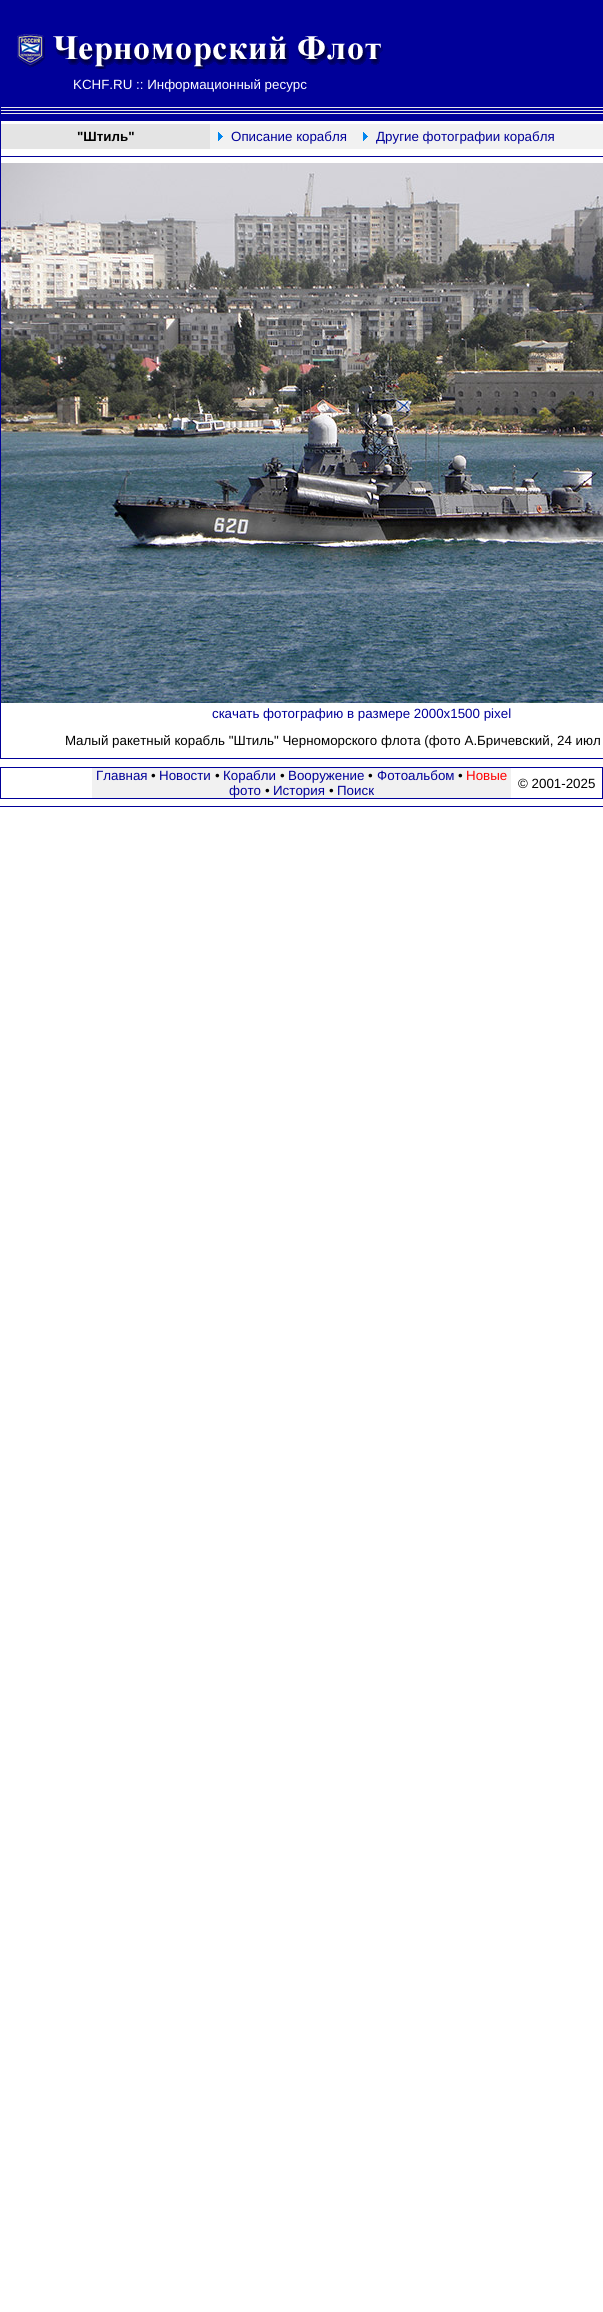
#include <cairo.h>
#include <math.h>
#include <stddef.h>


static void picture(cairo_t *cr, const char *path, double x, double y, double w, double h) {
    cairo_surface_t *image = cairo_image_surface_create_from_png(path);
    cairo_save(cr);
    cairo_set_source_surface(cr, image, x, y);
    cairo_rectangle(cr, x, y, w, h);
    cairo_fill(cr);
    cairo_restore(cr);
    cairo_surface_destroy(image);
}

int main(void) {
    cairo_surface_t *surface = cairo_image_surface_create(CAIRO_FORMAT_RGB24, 603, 2312);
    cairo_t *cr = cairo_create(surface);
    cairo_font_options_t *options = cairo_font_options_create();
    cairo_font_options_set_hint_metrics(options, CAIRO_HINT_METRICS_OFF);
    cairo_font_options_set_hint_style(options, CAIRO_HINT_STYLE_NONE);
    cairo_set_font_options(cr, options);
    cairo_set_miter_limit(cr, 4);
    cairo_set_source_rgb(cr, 1, 1, 1);
    cairo_paint(cr);
    cairo_set_source_rgb(cr, 0, 0, 0.6);
    cairo_rectangle(cr, 0, 0, 603, 759);
    cairo_fill(cr);
    cairo_set_source_rgb(cr, 1, 1, 1);
    cairo_rectangle(cr, 1, 121, 602, 637);
    cairo_fill(cr);
    picture(cr, "img1.png", 17, 34, 366, 35);
    cairo_select_font_face(cr, "Liberation Sans", CAIRO_FONT_SLANT_NORMAL, CAIRO_FONT_WEIGHT_NORMAL);
    cairo_set_font_size(cr, 13.35);
    cairo_move_to(cr, 73, 89);
    cairo_show_text(cr, "KCHF.RU :: Информационный ресурс");
    picture(cr, "img2.png", 1, 107, 602, 7);
    cairo_set_source_rgb(cr, 0.894, 0.894, 0.894);
    cairo_rectangle(cr, 1, 124, 209, 25);
    cairo_fill(cr);
    cairo_select_font_face(cr, "Liberation Sans", CAIRO_FONT_SLANT_NORMAL, CAIRO_FONT_WEIGHT_BOLD);
    cairo_set_source_rgb(cr, 0, 0, 0);
    cairo_move_to(cr, 77, 141);
    cairo_show_text(cr, "\"Штиль\"");
    cairo_set_source_rgb(cr, 0.945, 0.945, 0.945);
    cairo_rectangle(cr, 210, 124, 393, 25);
    cairo_fill(cr);
    picture(cr, "img3.png", 218, 132, 5, 9);
    cairo_select_font_face(cr, "Liberation Sans", CAIRO_FONT_SLANT_NORMAL, CAIRO_FONT_WEIGHT_NORMAL);
    cairo_set_source_rgb(cr, 0, 0, 0.6);
    cairo_move_to(cr, 231, 141);
    cairo_show_text(cr, "Описание корабля");
    picture(cr, "img3.png", 363, 132, 5, 9);
    cairo_move_to(cr, 376, 141);
    cairo_show_text(cr, "Другие фотографии корабля");
    cairo_rectangle(cr, 1, 156, 602, 1);
    cairo_fill(cr);
    picture(cr, "img4.png", 1, 163, 602, 540);
    cairo_move_to(cr, 212, 718);
    cairo_show_text(cr, "скачать фотографию в размере 2000х1500 pixel");
    cairo_set_source_rgb(cr, 0, 0, 0);
    cairo_move_to(cr, 65, 745);
    cairo_show_text(cr, "Малый ракетный корабль \"Штиль\" Черноморского флота (фото А.Бричевский, 24 июл");
    cairo_set_source_rgb(cr, 0, 0, 0.6);
    cairo_rectangle(cr, 0, 767, 603, 32);
    cairo_fill(cr);
    cairo_set_source_rgb(cr, 1, 1, 1);
    cairo_rectangle(cr, 1, 768, 601, 30);
    cairo_fill(cr);
    cairo_set_source_rgb(cr, 0.945, 0.945, 0.945);
    cairo_rectangle(cr, 92, 768, 419, 30);
    cairo_fill(cr);
    cairo_set_source_rgb(cr, 0, 0, 0.6);
    cairo_move_to(cr, 96, 780);
    cairo_show_text(cr, "Главная");
    cairo_set_source_rgb(cr, 0, 0, 0);
    cairo_move_to(cr, 151, 780);
    cairo_show_text(cr, "•");
    cairo_set_source_rgb(cr, 0, 0, 0.6);
    cairo_move_to(cr, 159, 780);
    cairo_show_text(cr, "Новости");
    cairo_set_source_rgb(cr, 0, 0, 0);
    cairo_move_to(cr, 215, 780);
    cairo_show_text(cr, "•");
    cairo_set_source_rgb(cr, 0, 0, 0.6);
    cairo_move_to(cr, 223, 780);
    cairo_show_text(cr, "Корабли");
    cairo_set_source_rgb(cr, 0, 0, 0);
    cairo_move_to(cr, 280, 780);
    cairo_show_text(cr, "•");
    cairo_set_source_rgb(cr, 0, 0, 0.6);
    cairo_move_to(cr, 288, 780);
    cairo_show_text(cr, "Вооружение");
    cairo_set_source_rgb(cr, 0, 0, 0);
    cairo_move_to(cr, 368, 780);
    cairo_show_text(cr, "•");
    cairo_set_source_rgb(cr, 0, 0, 0.6);
    cairo_move_to(cr, 377, 780);
    cairo_show_text(cr, "Фотоальбом");
    cairo_set_source_rgb(cr, 0, 0, 0);
    cairo_move_to(cr, 458, 780);
    cairo_show_text(cr, "•");
    cairo_set_source_rgb(cr, 1, 0, 0);
    cairo_move_to(cr, 466, 780);
    cairo_show_text(cr, "Новые");
    cairo_set_source_rgb(cr, 0, 0, 0.6);
    cairo_move_to(cr, 229, 795);
    cairo_show_text(cr, "фото");
    cairo_set_source_rgb(cr, 0, 0, 0);
    cairo_move_to(cr, 265, 795);
    cairo_show_text(cr, "•");
    cairo_set_source_rgb(cr, 0, 0, 0.6);
    cairo_move_to(cr, 273, 795);
    cairo_show_text(cr, "История");
    cairo_set_source_rgb(cr, 0, 0, 0);
    cairo_move_to(cr, 329, 795);
    cairo_show_text(cr, "•");
    cairo_set_source_rgb(cr, 0, 0, 0.6);
    cairo_move_to(cr, 337, 795);
    cairo_show_text(cr, "Поиск");
    cairo_set_source_rgb(cr, 0, 0, 0);
    cairo_move_to(cr, 518, 788);
    cairo_show_text(cr, "© 2001-2025");
    cairo_set_source_rgb(cr, 0, 0, 0.6);
    cairo_rectangle(cr, 0, 806, 603, 1);
    cairo_fill(cr);
    cairo_surface_write_to_png(surface, "page.png");
    cairo_font_options_destroy(options);
    cairo_destroy(cr);
    cairo_surface_destroy(surface);
    return 0;
}
